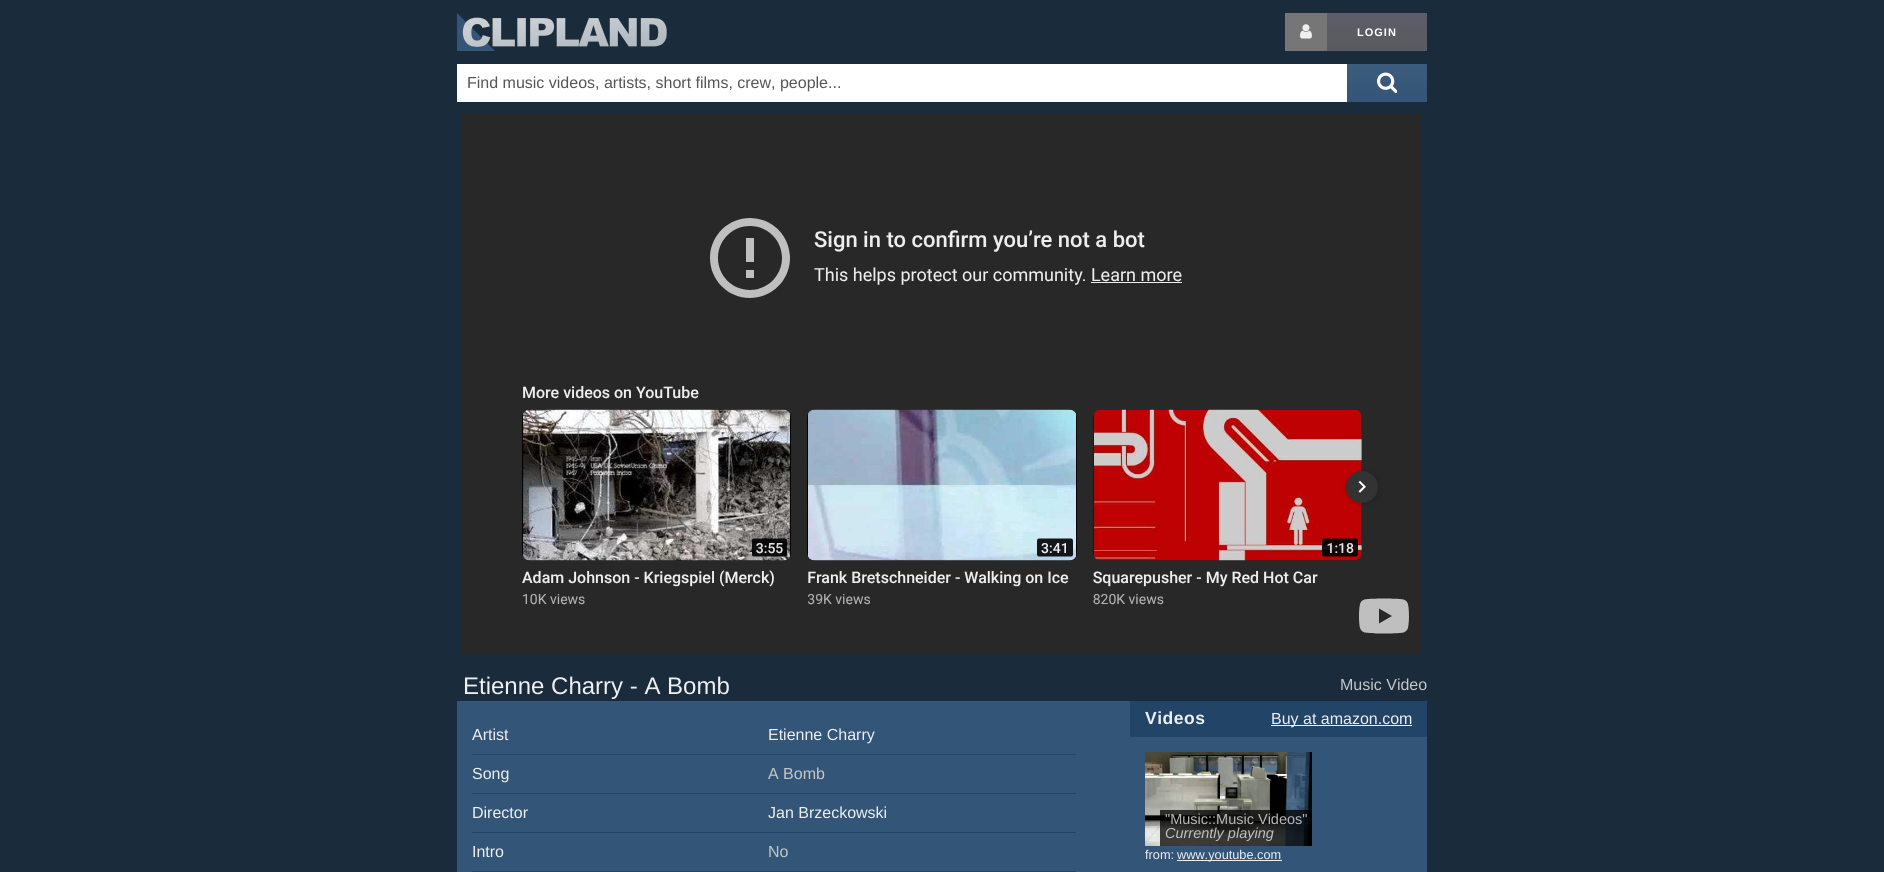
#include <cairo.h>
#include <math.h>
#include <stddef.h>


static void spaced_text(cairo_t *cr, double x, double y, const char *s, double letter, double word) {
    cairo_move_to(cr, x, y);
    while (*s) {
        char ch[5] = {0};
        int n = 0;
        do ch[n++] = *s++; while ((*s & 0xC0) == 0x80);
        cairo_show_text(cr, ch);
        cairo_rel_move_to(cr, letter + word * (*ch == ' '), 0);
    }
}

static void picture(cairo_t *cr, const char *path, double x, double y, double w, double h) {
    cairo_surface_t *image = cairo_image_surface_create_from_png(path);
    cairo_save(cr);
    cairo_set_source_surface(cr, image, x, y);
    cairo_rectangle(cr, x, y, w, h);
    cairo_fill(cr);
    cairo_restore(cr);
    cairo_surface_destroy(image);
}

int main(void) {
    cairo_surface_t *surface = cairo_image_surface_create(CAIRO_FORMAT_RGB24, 1884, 872);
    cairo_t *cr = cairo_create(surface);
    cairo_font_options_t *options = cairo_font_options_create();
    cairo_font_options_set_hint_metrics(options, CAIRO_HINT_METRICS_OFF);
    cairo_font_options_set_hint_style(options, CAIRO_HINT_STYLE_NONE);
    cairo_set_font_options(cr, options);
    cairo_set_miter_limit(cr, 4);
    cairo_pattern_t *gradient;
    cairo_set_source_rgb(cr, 0.102, 0.169, 0.235);
    cairo_paint(cr);
    picture(cr, "img1.png", 457, 13, 210, 38);
    cairo_set_source_rgb(cr, 0.463, 0.463, 0.463);
    cairo_rectangle(cr, 1285, 13, 42, 38);
    cairo_fill(cr);
    picture(cr, "img2.png", 1300, 24, 12, 15);
    gradient = cairo_pattern_create_linear(1377, 13, 1377, 51);
    cairo_pattern_add_color_stop_rgba(gradient, 0, 0.361, 0.365, 0.416, 1);
    cairo_pattern_add_color_stop_rgba(gradient, 1, 0.345, 0.357, 0.365, 1);
    cairo_set_source(cr, gradient);
    cairo_pattern_destroy(gradient);
    cairo_rectangle(cr, 1327, 13, 100, 38);
    cairo_fill(cr);
    cairo_select_font_face(cr, "Liberation Sans", CAIRO_FONT_SLANT_NORMAL, CAIRO_FONT_WEIGHT_BOLD);
    cairo_set_font_size(cr, 11);
    cairo_set_source_rgb(cr, 1, 1, 1);
    spaced_text(cr, 1357, 36, "LOGIN", 1, 0);
    cairo_rectangle(cr, 457, 64, 890, 38);
    cairo_fill(cr);
    cairo_select_font_face(cr, "Liberation Sans", CAIRO_FONT_SLANT_NORMAL, CAIRO_FONT_WEIGHT_NORMAL);
    cairo_set_font_size(cr, 16);
    cairo_set_source_rgb(cr, 0.333, 0.333, 0.333);
    cairo_move_to(cr, 467, 88);
    cairo_show_text(cr, "Find music videos, artists, short films, crew, people...");
    gradient = cairo_pattern_create_linear(1387, 64, 1387, 102);
    cairo_pattern_add_color_stop_rgba(gradient, 0, 0.235, 0.361, 0.486, 1);
    cairo_pattern_add_color_stop_rgba(gradient, 1, 0.2, 0.333, 0.467, 1);
    cairo_set_source(cr, gradient);
    cairo_pattern_destroy(gradient);
    cairo_rectangle(cr, 1347, 64, 80, 38);
    cairo_fill(cr);
    picture(cr, "img3.png", 1377, 72, 20, 21);
    picture(cr, "img4.png", 462, 114, 960, 540);
    cairo_set_font_size(cr, 24);
    cairo_set_source_rgb(cr, 0.937, 0.937, 0.937);
    cairo_move_to(cr, 463, 694);
    cairo_show_text(cr, "Etienne Charry - A Bomb");
    cairo_set_font_size(cr, 16);
    cairo_set_source_rgb(cr, 0.776, 0.776, 0.776);
    cairo_move_to(cr, 1340, 690);
    cairo_show_text(cr, "Music Video");
    cairo_set_source_rgb(cr, 0.2, 0.333, 0.467);
    cairo_rectangle(cr, 457, 701, 970, 171);
    cairo_fill(cr);
    cairo_set_source_rgb(cr, 0.937, 0.937, 0.937);
    cairo_move_to(cr, 472, 740);
    cairo_show_text(cr, "Artist");
    cairo_move_to(cr, 768, 740);
    cairo_show_text(cr, "Etienne Charry");
    cairo_set_source_rgb(cr, 0.133, 0.267, 0.4);
    cairo_rectangle(cr, 472, 754, 604, 1);
    cairo_fill(cr);
    cairo_set_source_rgb(cr, 0.937, 0.937, 0.937);
    cairo_move_to(cr, 472, 779);
    cairo_show_text(cr, "Song");
    cairo_set_source_rgb(cr, 0.776, 0.776, 0.776);
    cairo_move_to(cr, 768, 779);
    cairo_show_text(cr, "A Bomb");
    cairo_set_source_rgb(cr, 0.133, 0.267, 0.4);
    cairo_rectangle(cr, 472, 793, 604, 1);
    cairo_fill(cr);
    cairo_set_source_rgb(cr, 0.937, 0.937, 0.937);
    cairo_move_to(cr, 472, 818);
    cairo_show_text(cr, "Director");
    cairo_move_to(cr, 768, 818);
    cairo_show_text(cr, "Jan Brzeckowski");
    cairo_set_source_rgb(cr, 0.133, 0.267, 0.4);
    cairo_rectangle(cr, 472, 832, 604, 1);
    cairo_fill(cr);
    cairo_set_source_rgb(cr, 0.937, 0.937, 0.937);
    cairo_move_to(cr, 472, 857);
    cairo_show_text(cr, "Intro");
    cairo_set_source_rgb(cr, 0.776, 0.776, 0.776);
    cairo_move_to(cr, 768, 857);
    cairo_show_text(cr, "No");
    cairo_set_source_rgb(cr, 0.133, 0.267, 0.4);
    cairo_rectangle(cr, 472, 871, 604, 1);
    cairo_fill(cr);
    cairo_rectangle(cr, 1130, 701, 297, 36);
    cairo_fill(cr);
    cairo_select_font_face(cr, "Liberation Sans", CAIRO_FONT_SLANT_NORMAL, CAIRO_FONT_WEIGHT_BOLD);
    cairo_set_font_size(cr, 17.5);
    cairo_set_source_rgb(cr, 0.937, 0.937, 0.937);
    spaced_text(cr, 1145, 724, "Videos", 0.5, 0);
    cairo_rectangle(cr, 1271, 725, 27, 1);
    cairo_fill(cr);
    cairo_select_font_face(cr, "Liberation Sans", CAIRO_FONT_SLANT_NORMAL, CAIRO_FONT_WEIGHT_NORMAL);
    cairo_set_font_size(cr, 16);
    cairo_move_to(cr, 1271, 724);
    cairo_show_text(cr, "Buy at amazon.com");
    cairo_rectangle(cr, 1298, 725, 114, 1);
    cairo_fill(cr);
    picture(cr, "img5.png", 1145, 752, 167, 94);
    cairo_set_source_rgba(cr, 0, 0, 0, 0.75);
    cairo_rectangle(cr, 1160, 810, 152, 36);
    cairo_fill(cr);
    cairo_set_font_size(cr, 14.5);
    cairo_set_source_rgb(cr, 0.722, 0.722, 0.722);
    cairo_move_to(cr, 1165, 824);
    cairo_show_text(cr, "\"Music::Music Videos\"");
    cairo_select_font_face(cr, "Liberation Sans", CAIRO_FONT_SLANT_ITALIC, CAIRO_FONT_WEIGHT_NORMAL);
    cairo_set_source_rgb(cr, 0.753, 0.753, 0.749);
    cairo_move_to(cr, 1165, 838);
    cairo_show_text(cr, "Currently playing");
    cairo_select_font_face(cr, "Liberation Sans", CAIRO_FONT_SLANT_NORMAL, CAIRO_FONT_WEIGHT_NORMAL);
    cairo_set_font_size(cr, 12.75);
    cairo_set_source_rgb(cr, 0.937, 0.937, 0.937);
    cairo_move_to(cr, 1145, 859);
    cairo_show_text(cr, "from:");
    cairo_rectangle(cr, 1177, 860, 105, 1);
    cairo_fill(cr);
    cairo_move_to(cr, 1177, 859);
    cairo_show_text(cr, "www.youtube.com");
    cairo_surface_write_to_png(surface, "page.png");
    cairo_font_options_destroy(options);
    cairo_destroy(cr);
    cairo_surface_destroy(surface);
    return 0;
}
